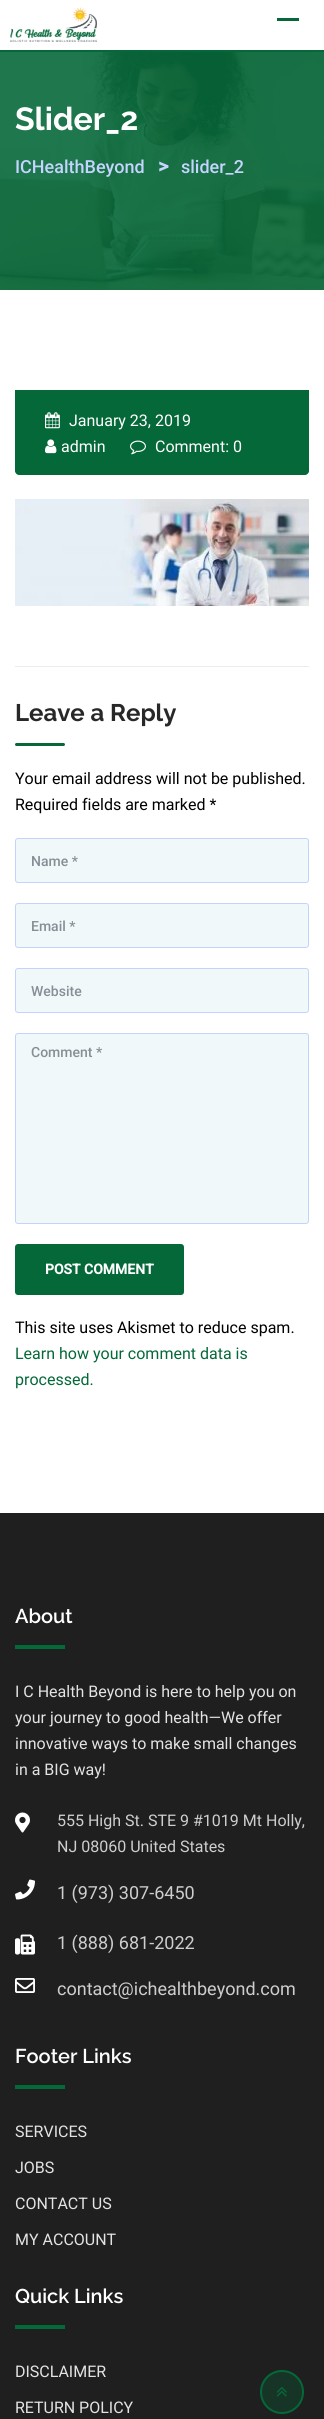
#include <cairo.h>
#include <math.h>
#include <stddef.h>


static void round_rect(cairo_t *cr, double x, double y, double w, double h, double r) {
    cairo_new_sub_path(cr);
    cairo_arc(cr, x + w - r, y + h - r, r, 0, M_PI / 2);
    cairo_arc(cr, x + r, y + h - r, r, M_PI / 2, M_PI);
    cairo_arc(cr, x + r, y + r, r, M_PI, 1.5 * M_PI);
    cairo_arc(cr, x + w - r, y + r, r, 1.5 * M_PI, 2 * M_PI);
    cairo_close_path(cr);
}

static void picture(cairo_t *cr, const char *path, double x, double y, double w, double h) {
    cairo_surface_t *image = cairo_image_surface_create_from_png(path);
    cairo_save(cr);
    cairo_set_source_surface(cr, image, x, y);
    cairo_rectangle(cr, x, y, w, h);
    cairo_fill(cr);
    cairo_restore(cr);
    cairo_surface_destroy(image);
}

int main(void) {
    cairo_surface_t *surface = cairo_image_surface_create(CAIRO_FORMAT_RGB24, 324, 2419);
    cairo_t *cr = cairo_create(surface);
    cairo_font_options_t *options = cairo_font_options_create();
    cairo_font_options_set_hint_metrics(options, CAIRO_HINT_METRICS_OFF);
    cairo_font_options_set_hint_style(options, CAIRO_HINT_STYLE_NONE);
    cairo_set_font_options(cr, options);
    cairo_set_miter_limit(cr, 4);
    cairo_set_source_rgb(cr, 1, 1, 1);
    cairo_paint(cr);
    cairo_set_source_rgb(cr, 0.02, 0.408, 0.224);
    cairo_rectangle(cr, 0, 50, 324, 2);
    cairo_fill(cr);
    picture(cr, "img1.png", 10, 7, 87, 35);
    cairo_rectangle(cr, 277, 18, 22, 3);
    cairo_fill(cr);
    picture(cr, "img2.png", 0, 52, 324, 238);
    cairo_select_font_face(cr, "Raleway", CAIRO_FONT_SLANT_NORMAL, CAIRO_FONT_WEIGHT_BOLD);
    cairo_set_font_size(cr, 32);
    cairo_set_source_rgb(cr, 1, 1, 1);
    cairo_move_to(cr, 15, 130);
    cairo_show_text(cr, "Slider_2");
    cairo_select_font_face(cr, "Roboto Medium", CAIRO_FONT_SLANT_NORMAL, CAIRO_FONT_WEIGHT_NORMAL);
    cairo_set_font_size(cr, 18);
    cairo_set_source_rgb(cr, 0.773, 0.835, 1);
    cairo_move_to(cr, 15, 173);
    cairo_show_text(cr, "ICHealthBeyond");
    cairo_select_font_face(cr, "Roboto", CAIRO_FONT_SLANT_NORMAL, CAIRO_FONT_WEIGHT_BOLD);
    cairo_set_font_size(cr, 20);
    cairo_move_to(cr, 158, 173);
    cairo_show_text(cr, ">");
    cairo_select_font_face(cr, "Roboto Medium", CAIRO_FONT_SLANT_NORMAL, CAIRO_FONT_WEIGHT_NORMAL);
    cairo_set_font_size(cr, 18);
    cairo_move_to(cr, 181, 173);
    cairo_show_text(cr, "slider_2");
    cairo_set_source_rgb(cr, 0.02, 0.408, 0.224);
    cairo_new_path(cr);
    cairo_move_to(cr, 15, 390);
    cairo_line_to(cr, 309, 390);
    cairo_line_to(cr, 309, 471);
    cairo_curve_to(cr, 309, 473, 307, 475, 305, 475);
    cairo_line_to(cr, 19, 475);
    cairo_curve_to(cr, 17, 475, 15, 473, 15, 471);
    cairo_close_path(cr);
    cairo_fill(cr);
    picture(cr, "img3.png", 45, 412, 15, 17);
    cairo_select_font_face(cr, "Roboto", CAIRO_FONT_SLANT_NORMAL, CAIRO_FONT_WEIGHT_NORMAL);
    cairo_set_font_size(cr, 16);
    cairo_set_source_rgb(cr, 1, 1, 1);
    cairo_move_to(cr, 69, 426);
    cairo_show_text(cr, "January 23, 2019");
    picture(cr, "img4.png", 45, 439, 12, 15);
    cairo_move_to(cr, 61, 452);
    cairo_show_text(cr, "admin");
    picture(cr, "img5.png", 130, 440, 16, 15);
    cairo_move_to(cr, 155, 452);
    cairo_show_text(cr, "Comment: 0");
    cairo_set_source_rgb(cr, 0.922, 0.922, 0.922);
    cairo_rectangle(cr, 15, 666, 294, 1);
    cairo_fill(cr);
    picture(cr, "img6.png", 15, 499, 294, 107);
    cairo_select_font_face(cr, "Raleway", CAIRO_FONT_SLANT_NORMAL, CAIRO_FONT_WEIGHT_BOLD);
    cairo_set_font_size(cr, 24);
    cairo_set_source_rgb(cr, 0.157, 0.157, 0.157);
    cairo_move_to(cr, 15, 721);
    cairo_show_text(cr, "Leave a Reply");
    cairo_set_source_rgb(cr, 0.02, 0.408, 0.224);
    round_rect(cr, 15, 743, 50, 3, 1.5);
    cairo_fill(cr);
    cairo_select_font_face(cr, "Roboto", CAIRO_FONT_SLANT_NORMAL, CAIRO_FONT_WEIGHT_NORMAL);
    cairo_set_font_size(cr, 16);
    cairo_set_source_rgb(cr, 0, 0, 0);
    cairo_move_to(cr, 15, 784);
    cairo_show_text(cr, "Your email address will not be published.");
    cairo_move_to(cr, 15, 810);
    cairo_show_text(cr, "Required fields are marked *");
    cairo_set_source_rgb(cr, 0.945, 0.969, 0.98);
    round_rect(cr, 16, 839, 292, 43, 2);
    cairo_fill(cr);
    round_rect(cr, 15.5, 838.5, 293, 44, 2.5);
    cairo_set_source_rgba(cr, 0.224, 0.424, 0.941, 0.3);
    cairo_set_line_width(cr, 1);
    cairo_stroke(cr);
    cairo_select_font_face(cr, "Roboto Medium", CAIRO_FONT_SLANT_NORMAL, CAIRO_FONT_WEIGHT_NORMAL);
    cairo_set_font_size(cr, 14);
    cairo_set_source_rgb(cr, 0.525, 0.557, 0.588);
    cairo_move_to(cr, 31, 866);
    cairo_show_text(cr, "Name *");
    cairo_set_source_rgb(cr, 0.945, 0.969, 0.98);
    round_rect(cr, 16, 904, 292, 43, 2);
    cairo_fill(cr);
    round_rect(cr, 15.5, 903.5, 293, 44, 2.5);
    cairo_set_source_rgba(cr, 0.224, 0.424, 0.941, 0.3);
    cairo_stroke(cr);
    cairo_set_source_rgb(cr, 0.525, 0.557, 0.588);
    cairo_move_to(cr, 31, 931);
    cairo_show_text(cr, "Email *");
    cairo_set_source_rgb(cr, 0.945, 0.969, 0.98);
    round_rect(cr, 16, 969, 292, 43, 2);
    cairo_fill(cr);
    round_rect(cr, 15.5, 968.5, 293, 44, 2.5);
    cairo_set_source_rgba(cr, 0.224, 0.424, 0.941, 0.3);
    cairo_stroke(cr);
    cairo_set_source_rgb(cr, 0.525, 0.557, 0.588);
    cairo_move_to(cr, 31, 996);
    cairo_show_text(cr, "Website");
    cairo_set_source_rgb(cr, 0.945, 0.969, 0.98);
    round_rect(cr, 16, 1034, 292, 189, 2);
    cairo_fill(cr);
    round_rect(cr, 15.5, 1033.5, 293, 190, 2.5);
    cairo_set_source_rgba(cr, 0.224, 0.424, 0.941, 0.3);
    cairo_stroke(cr);
    cairo_set_source_rgb(cr, 0.525, 0.557, 0.588);
    cairo_move_to(cr, 31, 1057);
    cairo_show_text(cr, "Comment *");
    cairo_set_source_rgb(cr, 0.02, 0.408, 0.224);
    round_rect(cr, 15, 1244, 169, 51, 3);
    cairo_fill(cr);
    cairo_select_font_face(cr, "Roboto", CAIRO_FONT_SLANT_NORMAL, CAIRO_FONT_WEIGHT_BOLD);
    cairo_set_source_rgb(cr, 1, 1, 1);
    cairo_move_to(cr, 45, 1274);
    cairo_show_text(cr, "POST COMMENT");
    cairo_select_font_face(cr, "Roboto", CAIRO_FONT_SLANT_NORMAL, CAIRO_FONT_WEIGHT_NORMAL);
    cairo_set_font_size(cr, 16);
    cairo_set_source_rgb(cr, 0, 0, 0);
    cairo_move_to(cr, 15, 1333);
    cairo_show_text(cr, "This site uses Akismet to reduce spam.");
    cairo_set_source_rgb(cr, 0.02, 0.408, 0.224);
    cairo_move_to(cr, 15, 1359);
    cairo_show_text(cr, "Learn how your comment data is");
    cairo_move_to(cr, 15, 1385);
    cairo_show_text(cr, "processed.");
    cairo_set_source_rgb(cr, 0.122, 0.122, 0.122);
    cairo_rectangle(cr, 0, 1513, 324, 906);
    cairo_fill(cr);
    cairo_select_font_face(cr, "Raleway SemiBold", CAIRO_FONT_SLANT_NORMAL, CAIRO_FONT_WEIGHT_NORMAL);
    cairo_set_font_size(cr, 20);
    cairo_set_source_rgb(cr, 1, 1, 1);
    cairo_move_to(cr, 15, 1623);
    cairo_show_text(cr, "About");
    cairo_set_source_rgb(cr, 0.02, 0.408, 0.224);
    cairo_rectangle(cr, 15, 1645, 50, 4);
    cairo_fill(cr);
    cairo_select_font_face(cr, "Roboto", CAIRO_FONT_SLANT_NORMAL, CAIRO_FONT_WEIGHT_NORMAL);
    cairo_set_font_size(cr, 16);
    cairo_set_source_rgb(cr, 0.89, 0.89, 0.89);
    cairo_move_to(cr, 15, 1697);
    cairo_show_text(cr, "I C Health Beyond is here to help you on");
    cairo_move_to(cr, 15, 1723);
    cairo_show_text(cr, "your journey to good health—We offer");
    cairo_move_to(cr, 15, 1749);
    cairo_show_text(cr, "innovative ways to make small changes");
    cairo_move_to(cr, 15, 1775);
    cairo_show_text(cr, "in a BIG way!");
    picture(cr, "img7.png", 15, 1812, 15, 21);
    cairo_set_source_rgb(cr, 0.808, 0.808, 0.808);
    cairo_move_to(cr, 57, 1826);
    cairo_show_text(cr, "555 High St. STE 9 #1019 Mt Holly,");
    cairo_move_to(cr, 57, 1852);
    cairo_show_text(cr, "NJ 08060 United States");
    picture(cr, "img8.png", 15, 1879, 20, 21);
    cairo_set_font_size(cr, 18);
    cairo_move_to(cr, 57, 1899);
    cairo_show_text(cr, "1 (973) 307-6450");
    picture(cr, "img9.png", 15, 1934, 20, 21);
    cairo_move_to(cr, 57, 1949);
    cairo_show_text(cr, "1 (888) 681-2022");
    picture(cr, "img10.png", 15, 1978, 20, 15);
    cairo_move_to(cr, 57, 1995);
    cairo_show_text(cr, "contact@ichealthbeyond.com");
    cairo_select_font_face(cr, "Raleway SemiBold", CAIRO_FONT_SLANT_NORMAL, CAIRO_FONT_WEIGHT_NORMAL);
    cairo_set_font_size(cr, 20);
    cairo_set_source_rgb(cr, 1, 1, 1);
    cairo_move_to(cr, 15, 2063);
    cairo_show_text(cr, "Footer Links");
    cairo_set_source_rgb(cr, 0.02, 0.408, 0.224);
    cairo_rectangle(cr, 15, 2085, 50, 4);
    cairo_fill(cr);
    cairo_select_font_face(cr, "Roboto", CAIRO_FONT_SLANT_NORMAL, CAIRO_FONT_WEIGHT_NORMAL);
    cairo_set_font_size(cr, 16);
    cairo_set_source_rgb(cr, 0.89, 0.89, 0.89);
    cairo_move_to(cr, 15, 2137);
    cairo_show_text(cr, "SERVICES");
    cairo_move_to(cr, 15, 2173);
    cairo_show_text(cr, "JOBS");
    cairo_move_to(cr, 15, 2209);
    cairo_show_text(cr, "CONTACT US");
    cairo_move_to(cr, 15, 2245);
    cairo_show_text(cr, "MY ACCOUNT");
    cairo_select_font_face(cr, "Raleway SemiBold", CAIRO_FONT_SLANT_NORMAL, CAIRO_FONT_WEIGHT_NORMAL);
    cairo_set_font_size(cr, 20);
    cairo_set_source_rgb(cr, 1, 1, 1);
    cairo_move_to(cr, 15, 2303);
    cairo_show_text(cr, "Quick Links");
    cairo_set_source_rgb(cr, 0.02, 0.408, 0.224);
    cairo_rectangle(cr, 15, 2325, 50, 4);
    cairo_fill(cr);
    cairo_select_font_face(cr, "Roboto", CAIRO_FONT_SLANT_NORMAL, CAIRO_FONT_WEIGHT_NORMAL);
    cairo_set_font_size(cr, 16);
    cairo_set_source_rgb(cr, 0.89, 0.89, 0.89);
    cairo_move_to(cr, 15, 2377);
    cairo_show_text(cr, "DISCLAIMER");
    cairo_move_to(cr, 15, 2413);
    cairo_show_text(cr, "RETURN POLICY");
    cairo_set_source_rgb(cr, 0.09, 0.208, 0.153);
    cairo_new_path(cr);
    cairo_arc(cr, 282, 2392, 21, 0, 2 * M_PI);
    cairo_fill_preserve(cr);
    cairo_set_source_rgb(cr, 0.02, 0.408, 0.224);
    cairo_set_line_width(cr, 2);
    cairo_stroke(cr);
    picture(cr, "img11.png", 276, 2387, 11, 10);
    cairo_surface_write_to_png(surface, "page.png");
    cairo_font_options_destroy(options);
    cairo_destroy(cr);
    cairo_surface_destroy(surface);
    return 0;
}
